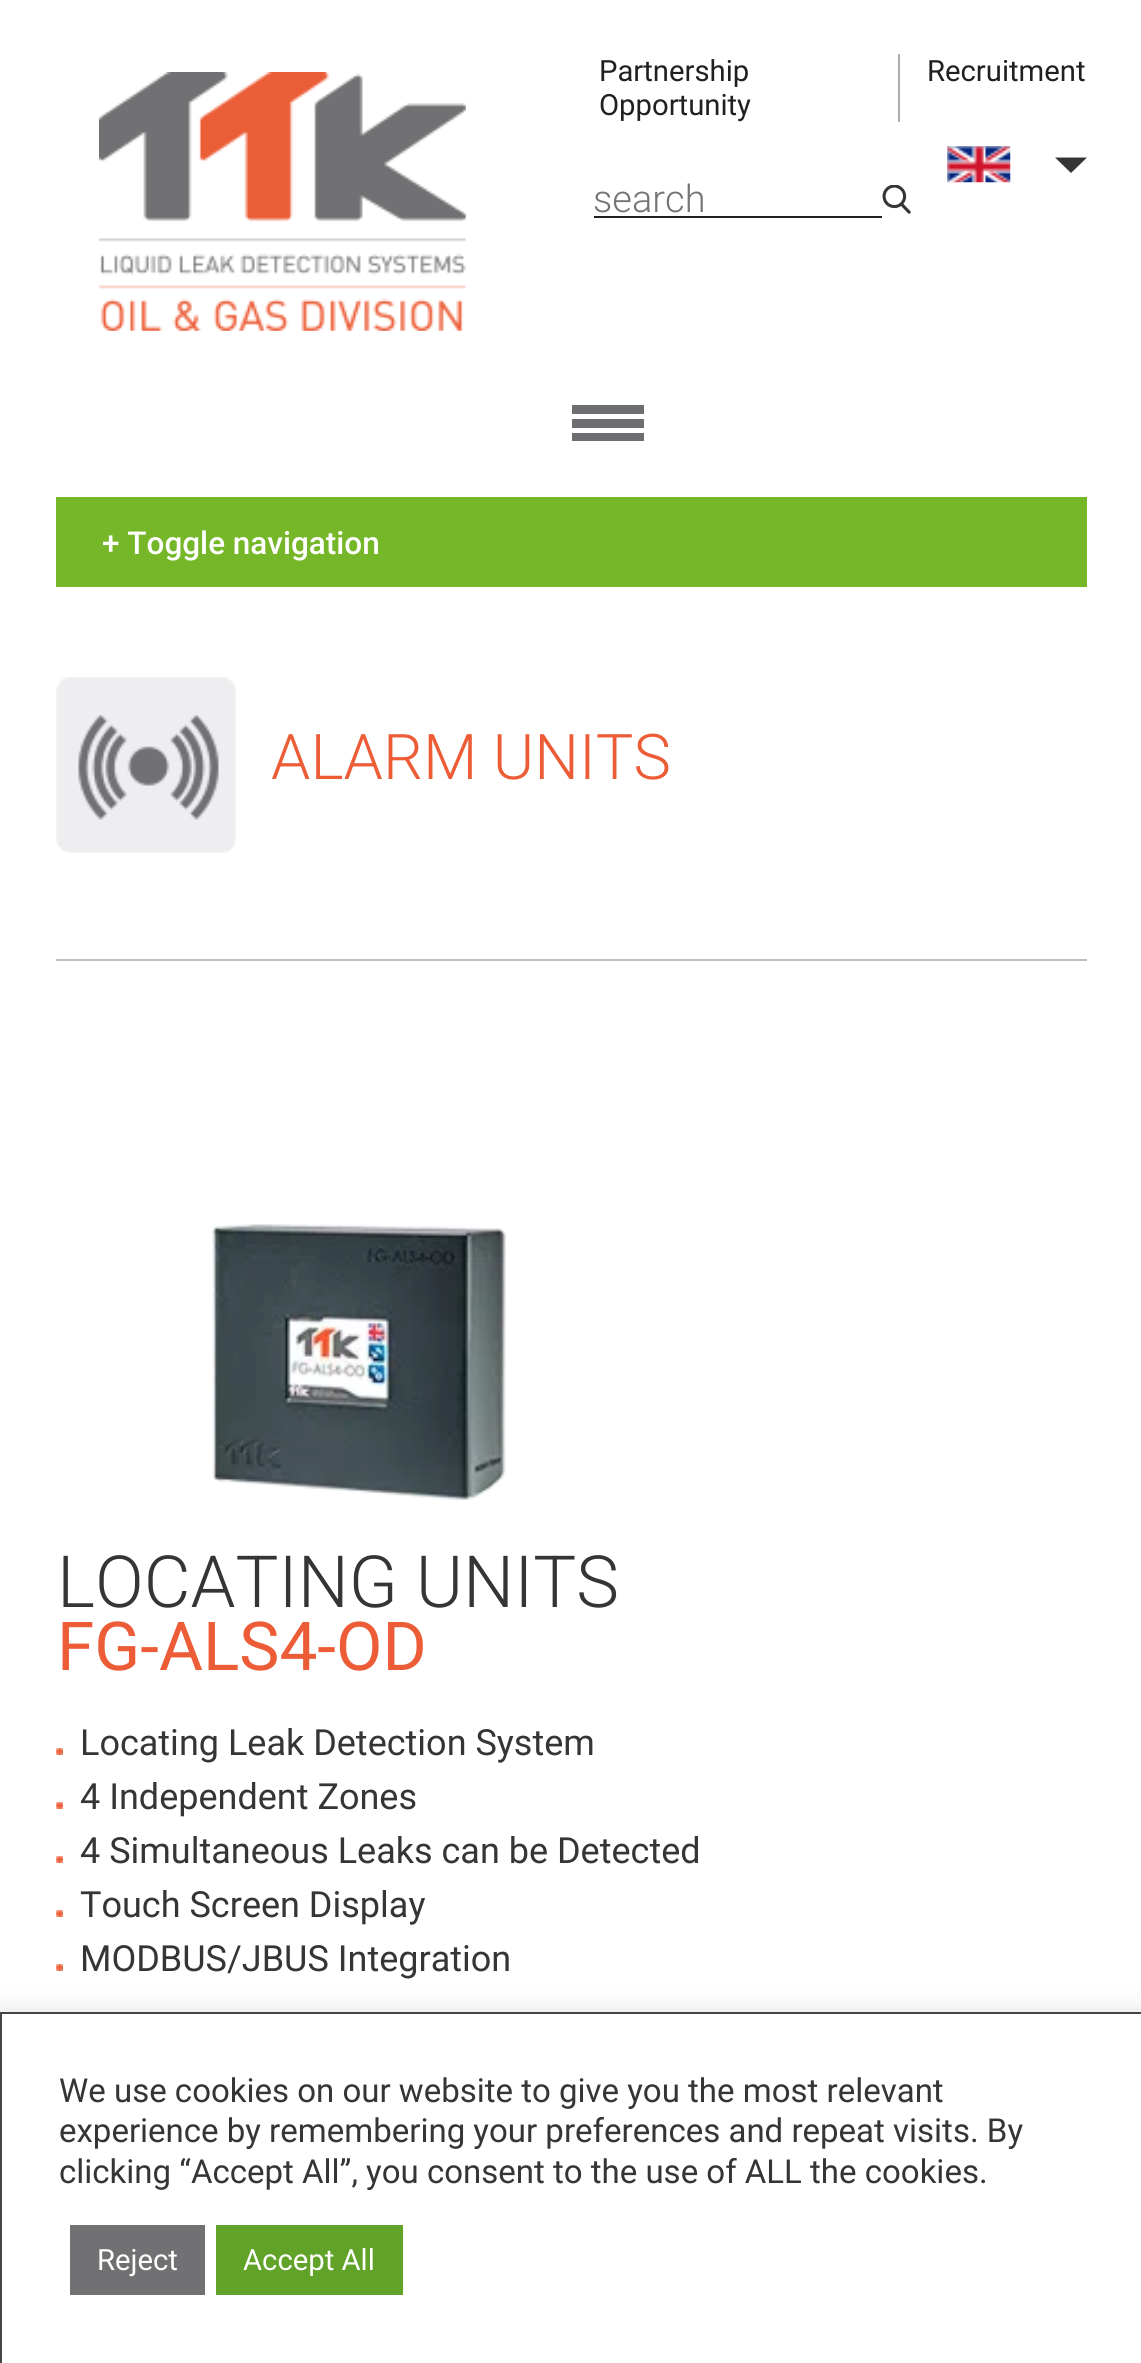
#include <cairo.h>
#include <math.h>
#include <stddef.h>


static void round_rect(cairo_t *cr, double x, double y, double w, double h, double r) {
    cairo_new_sub_path(cr);
    cairo_arc(cr, x + w - r, y + h - r, r, 0, M_PI / 2);
    cairo_arc(cr, x + r, y + h - r, r, M_PI / 2, M_PI);
    cairo_arc(cr, x + r, y + r, r, M_PI, 1.5 * M_PI);
    cairo_arc(cr, x + w - r, y + r, r, 1.5 * M_PI, 2 * M_PI);
    cairo_close_path(cr);
}

static void shadow(cairo_t *cr, double x, double y, double w, double h, double r, double blur, double alpha) {
    cairo_push_group_with_content(cr, CAIRO_CONTENT_ALPHA);
    cairo_set_operator(cr, CAIRO_OPERATOR_SOURCE);
    for (int i = 15; i >= -15 && fmin(w, h) + blur * i / 3 > 0; i -= 2) {
        double e = blur * i / 6;
        cairo_set_source_rgba(cr, 0, 0, 0, alpha * erfc((i - 1) / 8.5) / 2);
        round_rect(cr, x - e, y - e, w + 2 * e, h + 2 * e, fmax(0, fmin(r + e + blur * .6, fmin(w, h) / 2 + e)));
        cairo_fill(cr);
    }
    cairo_pattern_t *soft = cairo_pop_group(cr);
    cairo_mask(cr, soft);
    cairo_pattern_destroy(soft);
}

static void picture(cairo_t *cr, const char *path, double x, double y, double w, double h) {
    cairo_surface_t *image = cairo_image_surface_create_from_png(path);
    cairo_save(cr);
    cairo_set_source_surface(cr, image, x, y);
    cairo_rectangle(cr, x, y, w, h);
    cairo_fill(cr);
    cairo_restore(cr);
    cairo_surface_destroy(image);
}

int main(void) {
    cairo_surface_t *surface = cairo_image_surface_create(CAIRO_FORMAT_RGB24, 1141, 2363);
    cairo_t *cr = cairo_create(surface);
    cairo_font_options_t *options = cairo_font_options_create();
    cairo_font_options_set_hint_metrics(options, CAIRO_HINT_METRICS_OFF);
    cairo_font_options_set_hint_style(options, CAIRO_HINT_STYLE_NONE);
    cairo_set_font_options(cr, options);
    cairo_set_miter_limit(cr, 4);
    cairo_set_source_rgb(cr, 1, 1, 1);
    cairo_paint(cr);
    picture(cr, "img1.png", 99, 72, 367, 259);
    cairo_set_source_rgb(cr, 0.682, 0.682, 0.682);
    cairo_rectangle(cr, 898, 54, 2, 68);
    cairo_fill(cr);
    cairo_select_font_face(cr, "Roboto", CAIRO_FONT_SLANT_NORMAL, CAIRO_FONT_WEIGHT_NORMAL);
    cairo_set_font_size(cr, 29.25);
    cairo_set_source_rgb(cr, 0.125, 0.125, 0.125);
    cairo_move_to(cr, 599, 81);
    cairo_show_text(cr, "Partnership");
    cairo_move_to(cr, 599, 115);
    cairo_show_text(cr, "Opportunity");
    cairo_move_to(cr, 927, 81);
    cairo_show_text(cr, "Recruitment");
    picture(cr, "img2.png", 947, 146, 64, 37);
    cairo_set_source_rgb(cr, 0.208, 0.208, 0.208);
    cairo_new_path(cr);
    cairo_move_to(cr, 1055, 157.5);
    cairo_line_to(cr, 1087, 157.5);
    cairo_line_to(cr, 1071, 173);
    cairo_close_path(cr);
    cairo_fill(cr);
    cairo_set_source_rgb(cr, 0.125, 0.125, 0.125);
    cairo_rectangle(cr, 594, 216, 288, 2);
    cairo_fill(cr);
    cairo_select_font_face(cr, "Roboto Light", CAIRO_FONT_SLANT_NORMAL, CAIRO_FONT_WEIGHT_NORMAL);
    cairo_set_font_size(cr, 38);
    cairo_set_source_rgb(cr, 0.459, 0.459, 0.459);
    cairo_move_to(cr, 593, 212);
    cairo_show_text(cr, "search");
    picture(cr, "img3.png", 882, 185, 29, 29);
    cairo_set_source_rgb(cr, 0.427, 0.431, 0.447);
    cairo_rectangle(cr, 572, 433, 72, 8);
    cairo_fill(cr);
    cairo_rectangle(cr, 572, 405, 72, 9);
    cairo_fill(cr);
    cairo_rectangle(cr, 572, 419, 72, 9);
    cairo_fill(cr);
    cairo_set_source_rgb(cr, 0.463, 0.718, 0.161);
    cairo_rectangle(cr, 56, 497, 1031, 90);
    cairo_fill(cr);
    cairo_select_font_face(cr, "Roboto Medium", CAIRO_FONT_SLANT_NORMAL, CAIRO_FONT_WEIGHT_NORMAL);
    cairo_set_font_size(cr, 31.5);
    cairo_set_source_rgb(cr, 1, 1, 1);
    cairo_move_to(cr, 102, 554);
    cairo_show_text(cr, "+ Toggle navigation");
    picture(cr, "img4.png", 56, 677, 180, 176);
    cairo_select_font_face(cr, "Roboto Light", CAIRO_FONT_SLANT_NORMAL, CAIRO_FONT_WEIGHT_NORMAL);
    cairo_set_font_size(cr, 63);
    cairo_set_source_rgb(cr, 0.922, 0.365, 0.216);
    cairo_move_to(cr, 271, 779);
    cairo_show_text(cr, "ALARM UNITS");
    cairo_set_source_rgb(cr, 0.745, 0.745, 0.745);
    cairo_rectangle(cr, 56, 959, 1031, 2);
    cairo_fill(cr);
    picture(cr, "img5.png", 212, 1224, 294, 276);
    cairo_set_font_size(cr, 72);
    cairo_set_source_rgb(cr, 0.208, 0.208, 0.208);
    cairo_move_to(cr, 57, 1607);
    cairo_show_text(cr, "LOCATING UNITS");
    cairo_select_font_face(cr, "Roboto", CAIRO_FONT_SLANT_NORMAL, CAIRO_FONT_WEIGHT_NORMAL);
    cairo_set_font_size(cr, 67.5);
    cairo_set_source_rgb(cr, 0.922, 0.365, 0.216);
    cairo_move_to(cr, 57, 1670);
    cairo_show_text(cr, "FG-ALS4-OD");
    picture(cr, "img6.png", 56, 1748, 7, 7);
    cairo_set_font_size(cr, 36);
    cairo_set_source_rgb(cr, 0.208, 0.208, 0.208);
    cairo_move_to(cr, 80, 1755);
    cairo_show_text(cr, "Locating Leak Detection System");
    picture(cr, "img6.png", 56, 1802, 7, 7);
    cairo_move_to(cr, 80, 1809);
    cairo_show_text(cr, "4 Independent Zones");
    picture(cr, "img6.png", 56, 1856, 7, 7);
    cairo_move_to(cr, 80, 1863);
    cairo_show_text(cr, "4 Simultaneous Leaks can be Detected");
    picture(cr, "img6.png", 56, 1910, 7, 7);
    cairo_move_to(cr, 80, 1917);
    cairo_show_text(cr, "Touch Screen Display");
    picture(cr, "img6.png", 56, 1964, 7, 7);
    cairo_move_to(cr, 80, 1971);
    cairo_show_text(cr, "MODBUS/JBUS Integration");
    cairo_set_source_rgb(cr, 0.675, 0.671, 0.671);
    shadow(cr, 0, 2009, 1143, 354, 0, 11, 0.3);
    cairo_set_source_rgb(cr, 1, 1, 1);
    cairo_rectangle(cr, 1, 2013, 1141, 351);
    cairo_fill_preserve(cr);
    cairo_set_source_rgb(cr, 0.267, 0.267, 0.267);
    cairo_stroke(cr);
    cairo_set_font_size(cr, 33);
    cairo_set_source_rgb(cr, 0.208, 0.208, 0.208);
    cairo_move_to(cr, 59, 2102);
    cairo_show_text(cr, "We use cookies on our website to give you the most relevant");
    cairo_move_to(cr, 59, 2142);
    cairo_show_text(cr, "experience by remembering your preferences and repeat visits. By");
    cairo_move_to(cr, 59, 2183);
    cairo_show_text(cr, "clicking “Accept All”, you consent to the use of ALL the cookies.");
    cairo_set_source_rgb(cr, 0.443, 0.439, 0.447);
    cairo_rectangle(cr, 70, 2225, 135, 70);
    cairo_fill(cr);
    cairo_set_font_size(cr, 29.25);
    cairo_set_source_rgb(cr, 1, 1, 1);
    cairo_move_to(cr, 97, 2270);
    cairo_show_text(cr, "Reject");
    cairo_set_source_rgb(cr, 0.38, 0.635, 0.161);
    cairo_rectangle(cr, 216, 2225, 187, 70);
    cairo_fill(cr);
    cairo_set_source_rgb(cr, 1, 1, 1);
    cairo_move_to(cr, 243, 2270);
    cairo_show_text(cr, "Accept All");
    cairo_surface_write_to_png(surface, "page.png");
    cairo_font_options_destroy(options);
    cairo_destroy(cr);
    cairo_surface_destroy(surface);
    return 0;
}
